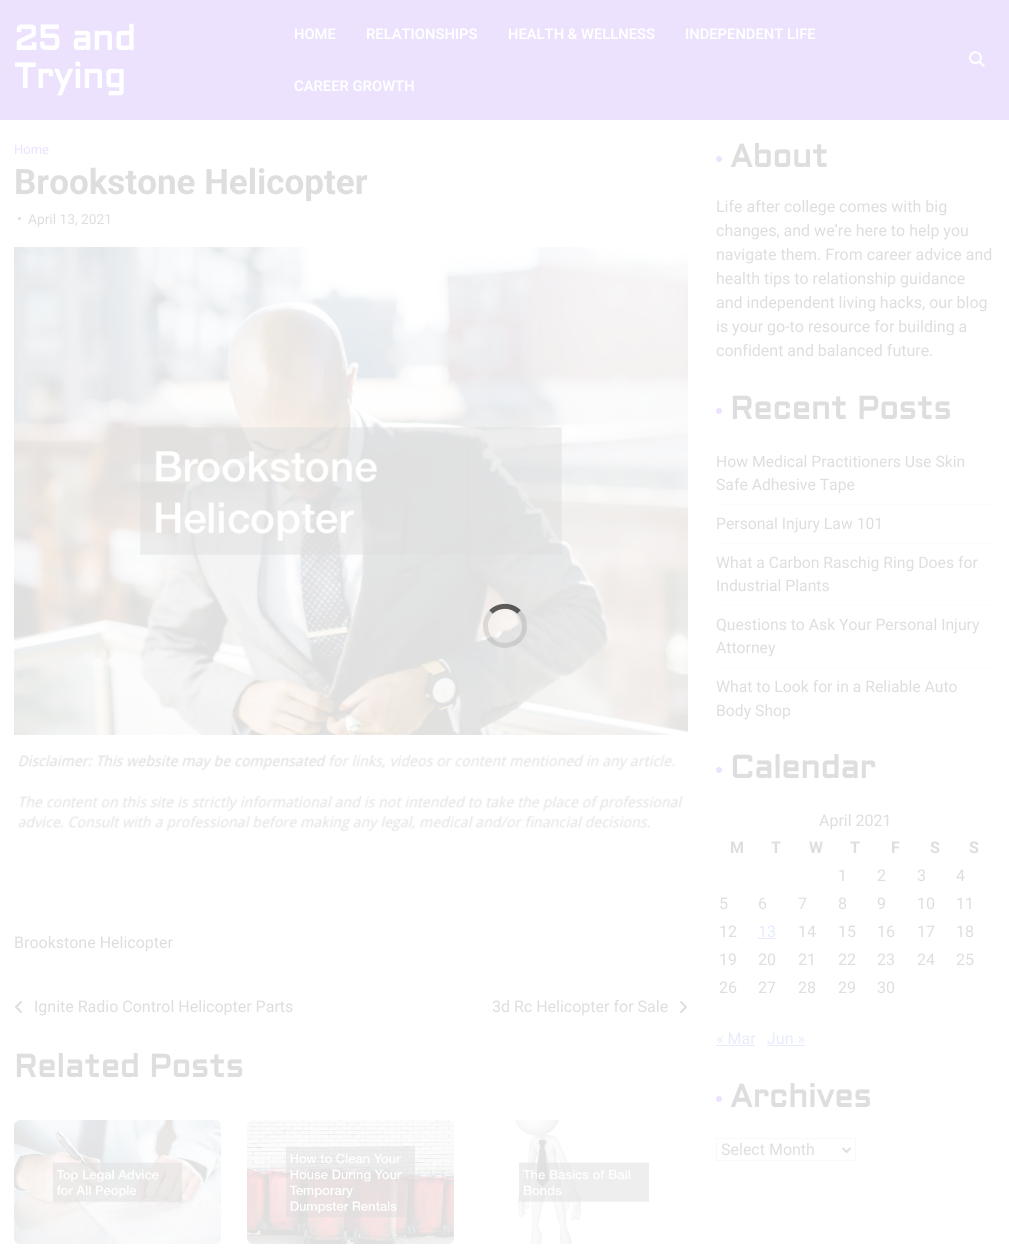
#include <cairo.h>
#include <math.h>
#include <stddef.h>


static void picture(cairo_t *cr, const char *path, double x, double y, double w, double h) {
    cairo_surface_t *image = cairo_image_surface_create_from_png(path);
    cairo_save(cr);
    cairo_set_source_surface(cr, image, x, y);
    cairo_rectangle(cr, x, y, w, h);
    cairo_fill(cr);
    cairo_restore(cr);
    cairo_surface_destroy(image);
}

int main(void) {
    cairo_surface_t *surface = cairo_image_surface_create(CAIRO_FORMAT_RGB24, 1009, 1252);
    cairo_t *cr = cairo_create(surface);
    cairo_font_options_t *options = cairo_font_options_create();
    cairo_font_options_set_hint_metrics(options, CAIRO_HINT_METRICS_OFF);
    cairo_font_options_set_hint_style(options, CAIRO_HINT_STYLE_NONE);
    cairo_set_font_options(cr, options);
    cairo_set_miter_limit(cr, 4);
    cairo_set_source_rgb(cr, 1, 1, 1);
    cairo_paint(cr);
    cairo_set_source_rgb(cr, 0.922, 0.886, 0.996);
    cairo_rectangle(cr, 0, 0, 1009, 120);
    cairo_fill(cr);
    cairo_select_font_face(cr, "Aldrich", CAIRO_FONT_SLANT_NORMAL, CAIRO_FONT_WEIGHT_BOLD);
    cairo_set_font_size(cr, 35);
    cairo_set_source_rgb(cr, 1, 1, 1);
    cairo_move_to(cr, 14, 50);
    cairo_show_text(cr, "25 and");
    cairo_move_to(cr, 14, 88);
    cairo_show_text(cr, "Trying");
    cairo_select_font_face(cr, "Roboto SemiBold", CAIRO_FONT_SLANT_NORMAL, CAIRO_FONT_WEIGHT_NORMAL);
    cairo_set_font_size(cr, 14.75);
    cairo_move_to(cr, 294, 39);
    cairo_show_text(cr, "HOME");
    cairo_move_to(cr, 366, 39);
    cairo_show_text(cr, "RELATIONSHIPS");
    cairo_move_to(cr, 508, 39);
    cairo_show_text(cr, "HEALTH & WELLNESS");
    cairo_move_to(cr, 685, 39);
    cairo_show_text(cr, "INDEPENDENT LIFE");
    cairo_move_to(cr, 294, 91);
    cairo_show_text(cr, "CAREER GROWTH");
    picture(cr, "img1.png", 969, 51, 16, 16);
    cairo_select_font_face(cr, "Roboto", CAIRO_FONT_SLANT_NORMAL, CAIRO_FONT_WEIGHT_NORMAL);
    cairo_set_font_size(cr, 13);
    cairo_set_source_rgb(cr, 0.922, 0.886, 0.996);
    cairo_move_to(cr, 14, 154);
    cairo_show_text(cr, "Home");
    cairo_select_font_face(cr, "Roboto", CAIRO_FONT_SLANT_NORMAL, CAIRO_FONT_WEIGHT_BOLD);
    cairo_set_font_size(cr, 35);
    cairo_set_source_rgb(cr, 0.871, 0.871, 0.871);
    cairo_move_to(cr, 14, 194);
    cairo_show_text(cr, "Brookstone Helicopter");
    cairo_new_path(cr);
    cairo_arc(cr, 19.5, 218.5, 1.5, 0, 2 * M_PI);
    cairo_fill(cr);
    cairo_select_font_face(cr, "Roboto", CAIRO_FONT_SLANT_NORMAL, CAIRO_FONT_WEIGHT_NORMAL);
    cairo_set_font_size(cr, 13.75);
    cairo_move_to(cr, 28, 224);
    cairo_show_text(cr, "April 13, 2021");
    picture(cr, "img2.png", 14, 247, 674, 488);
    picture(cr, "img3.png", 17, 754, 667, 78);
    cairo_set_font_size(cr, 16);
    cairo_move_to(cr, 14, 948);
    cairo_show_text(cr, "Brookstone Helicopter");
    picture(cr, "img4.png", 15, 1001, 7, 12);
    cairo_move_to(cr, 34, 1012);
    cairo_show_text(cr, "Ignite Radio Control Helicopter Parts");
    cairo_move_to(cr, 492, 1012);
    cairo_show_text(cr, "3d Rc Helicopter for Sale");
    picture(cr, "img5.png", 680, 1001, 7, 12);
    cairo_select_font_face(cr, "Aldrich", CAIRO_FONT_SLANT_NORMAL, CAIRO_FONT_WEIGHT_BOLD);
    cairo_set_font_size(cr, 32);
    cairo_move_to(cr, 14, 1077);
    cairo_show_text(cr, "Related Posts");
    picture(cr, "img6.png", 14, 1120, 207, 124);
    picture(cr, "img7.png", 247, 1120, 207, 124);
    picture(cr, "img8.png", 482, 1120, 206, 124);
    cairo_set_source_rgb(cr, 0.922, 0.886, 0.996);
    cairo_arc(cr, 719, 159, 3, 0, 2 * M_PI);
    cairo_fill(cr);
    cairo_set_source_rgb(cr, 0.871, 0.871, 0.871);
    cairo_move_to(cr, 730, 167);
    cairo_show_text(cr, "About");
    cairo_select_font_face(cr, "Roboto", CAIRO_FONT_SLANT_NORMAL, CAIRO_FONT_WEIGHT_NORMAL);
    cairo_set_font_size(cr, 16);
    cairo_move_to(cr, 716, 212);
    cairo_show_text(cr, "Life after college comes with big");
    cairo_move_to(cr, 716, 236);
    cairo_show_text(cr, "changes, and we’re here to help you");
    cairo_move_to(cr, 716, 260);
    cairo_show_text(cr, "navigate them. From career advice and");
    cairo_move_to(cr, 716, 284);
    cairo_show_text(cr, "health tips to relationship guidance");
    cairo_move_to(cr, 716, 308);
    cairo_show_text(cr, "and independent living hacks, our blog");
    cairo_move_to(cr, 716, 332);
    cairo_show_text(cr, "is your go-to resource for building a");
    cairo_move_to(cr, 716, 356);
    cairo_show_text(cr, "confident and balanced future.");
    cairo_set_source_rgb(cr, 0.922, 0.886, 0.996);
    cairo_new_path(cr);
    cairo_arc(cr, 719, 411, 3, 0, 2 * M_PI);
    cairo_fill(cr);
    cairo_select_font_face(cr, "Aldrich", CAIRO_FONT_SLANT_NORMAL, CAIRO_FONT_WEIGHT_BOLD);
    cairo_set_font_size(cr, 32);
    cairo_set_source_rgb(cr, 0.871, 0.871, 0.871);
    cairo_move_to(cr, 730, 419);
    cairo_show_text(cr, "Recent Posts");
    cairo_set_source_rgb(cr, 0.988, 0.988, 0.988);
    cairo_rectangle(cr, 716, 504, 279, 1);
    cairo_fill(cr);
    cairo_select_font_face(cr, "Roboto", CAIRO_FONT_SLANT_NORMAL, CAIRO_FONT_WEIGHT_NORMAL);
    cairo_set_font_size(cr, 15.75);
    cairo_set_source_rgb(cr, 0.871, 0.871, 0.871);
    cairo_move_to(cr, 716, 467);
    cairo_show_text(cr, "How Medical Practitioners Use Skin");
    cairo_move_to(cr, 716, 490);
    cairo_show_text(cr, "Safe Adhesive Tape");
    cairo_set_source_rgb(cr, 0.988, 0.988, 0.988);
    cairo_rectangle(cr, 716, 543, 279, 1);
    cairo_fill(cr);
    cairo_set_source_rgb(cr, 0.871, 0.871, 0.871);
    cairo_move_to(cr, 716, 529);
    cairo_show_text(cr, "Personal Injury Law 101");
    cairo_set_source_rgb(cr, 0.988, 0.988, 0.988);
    cairo_rectangle(cr, 716, 605, 279, 1);
    cairo_fill(cr);
    cairo_set_source_rgb(cr, 0.871, 0.871, 0.871);
    cairo_move_to(cr, 716, 568);
    cairo_show_text(cr, "What a Carbon Raschig Ring Does for");
    cairo_move_to(cr, 716, 591);
    cairo_show_text(cr, "Industrial Plants");
    cairo_set_source_rgb(cr, 0.988, 0.988, 0.988);
    cairo_rectangle(cr, 716, 667, 279, 1);
    cairo_fill(cr);
    cairo_set_source_rgb(cr, 0.871, 0.871, 0.871);
    cairo_move_to(cr, 716, 630);
    cairo_show_text(cr, "Questions to Ask Your Personal Injury");
    cairo_move_to(cr, 716, 653);
    cairo_show_text(cr, "Attorney");
    cairo_move_to(cr, 716, 692);
    cairo_show_text(cr, "What to Look for in a Reliable Auto");
    cairo_move_to(cr, 716, 716);
    cairo_show_text(cr, "Body Shop");
    cairo_set_source_rgb(cr, 0.922, 0.886, 0.996);
    cairo_new_path(cr);
    cairo_arc(cr, 719, 770, 3, 0, 2 * M_PI);
    cairo_fill(cr);
    cairo_select_font_face(cr, "Aldrich", CAIRO_FONT_SLANT_NORMAL, CAIRO_FONT_WEIGHT_BOLD);
    cairo_set_font_size(cr, 32);
    cairo_set_source_rgb(cr, 0.871, 0.871, 0.871);
    cairo_move_to(cr, 730, 778);
    cairo_show_text(cr, "Calendar");
    cairo_select_font_face(cr, "Roboto", CAIRO_FONT_SLANT_NORMAL, CAIRO_FONT_WEIGHT_NORMAL);
    cairo_set_font_size(cr, 16);
    cairo_move_to(cr, 819, 826);
    cairo_show_text(cr, "April 2021");
    cairo_select_font_face(cr, "Roboto", CAIRO_FONT_SLANT_NORMAL, CAIRO_FONT_WEIGHT_BOLD);
    cairo_move_to(cr, 730, 853);
    cairo_show_text(cr, "M");
    cairo_move_to(cr, 771, 853);
    cairo_show_text(cr, "T");
    cairo_move_to(cr, 809, 853);
    cairo_show_text(cr, "W");
    cairo_move_to(cr, 850, 853);
    cairo_show_text(cr, "T");
    cairo_move_to(cr, 891, 853);
    cairo_show_text(cr, "F");
    cairo_move_to(cr, 930, 853);
    cairo_show_text(cr, "S");
    cairo_move_to(cr, 969, 853);
    cairo_show_text(cr, "S");
    cairo_select_font_face(cr, "Roboto", CAIRO_FONT_SLANT_NORMAL, CAIRO_FONT_WEIGHT_NORMAL);
    cairo_move_to(cr, 838, 881);
    cairo_show_text(cr, "1");
    cairo_move_to(cr, 877, 881);
    cairo_show_text(cr, "2");
    cairo_move_to(cr, 917, 881);
    cairo_show_text(cr, "3");
    cairo_move_to(cr, 956, 881);
    cairo_show_text(cr, "4");
    cairo_move_to(cr, 719, 909);
    cairo_show_text(cr, "5");
    cairo_move_to(cr, 758, 909);
    cairo_show_text(cr, "6");
    cairo_move_to(cr, 798, 909);
    cairo_show_text(cr, "7");
    cairo_move_to(cr, 838, 909);
    cairo_show_text(cr, "8");
    cairo_move_to(cr, 877, 909);
    cairo_show_text(cr, "9");
    cairo_move_to(cr, 917, 909);
    cairo_show_text(cr, "10");
    cairo_move_to(cr, 956, 909);
    cairo_show_text(cr, "11");
    cairo_move_to(cr, 719, 937);
    cairo_show_text(cr, "12");
    cairo_set_source_rgb(cr, 0.902, 0.925, 0.984);
    cairo_move_to(cr, 758, 937);
    cairo_show_text(cr, "13");
    cairo_rectangle(cr, 758, 938, 18, 1);
    cairo_fill(cr);
    cairo_set_source_rgb(cr, 0.871, 0.871, 0.871);
    cairo_move_to(cr, 798, 937);
    cairo_show_text(cr, "14");
    cairo_move_to(cr, 838, 937);
    cairo_show_text(cr, "15");
    cairo_move_to(cr, 877, 937);
    cairo_show_text(cr, "16");
    cairo_move_to(cr, 917, 937);
    cairo_show_text(cr, "17");
    cairo_move_to(cr, 956, 937);
    cairo_show_text(cr, "18");
    cairo_move_to(cr, 719, 965);
    cairo_show_text(cr, "19");
    cairo_move_to(cr, 758, 965);
    cairo_show_text(cr, "20");
    cairo_move_to(cr, 798, 965);
    cairo_show_text(cr, "21");
    cairo_move_to(cr, 838, 965);
    cairo_show_text(cr, "22");
    cairo_move_to(cr, 877, 965);
    cairo_show_text(cr, "23");
    cairo_move_to(cr, 917, 965);
    cairo_show_text(cr, "24");
    cairo_move_to(cr, 956, 965);
    cairo_show_text(cr, "25");
    cairo_move_to(cr, 719, 993);
    cairo_show_text(cr, "26");
    cairo_move_to(cr, 758, 993);
    cairo_show_text(cr, "27");
    cairo_move_to(cr, 798, 993);
    cairo_show_text(cr, "28");
    cairo_move_to(cr, 838, 993);
    cairo_show_text(cr, "29");
    cairo_move_to(cr, 877, 993);
    cairo_show_text(cr, "30");
    cairo_set_source_rgb(cr, 0.902, 0.925, 0.984);
    cairo_move_to(cr, 716, 1044);
    cairo_show_text(cr, "« Mar");
    cairo_rectangle(cr, 716, 1045, 39, 1);
    cairo_fill(cr);
    cairo_move_to(cr, 767, 1044);
    cairo_show_text(cr, "Jun »");
    cairo_rectangle(cr, 767, 1045, 38, 1);
    cairo_fill(cr);
    cairo_set_source_rgb(cr, 0.922, 0.886, 0.996);
    cairo_arc(cr, 719, 1099, 3, 0, 2 * M_PI);
    cairo_fill(cr);
    cairo_select_font_face(cr, "Aldrich", CAIRO_FONT_SLANT_NORMAL, CAIRO_FONT_WEIGHT_BOLD);
    cairo_set_font_size(cr, 32);
    cairo_set_source_rgb(cr, 0.871, 0.871, 0.871);
    cairo_move_to(cr, 730, 1107);
    cairo_show_text(cr, "Archives");
    cairo_rectangle(cr, 716.5, 1138.5, 139, 22);
    cairo_set_source_rgb(cr, 0.973, 0.973, 0.973);
    cairo_set_line_width(cr, 1);
    cairo_stroke(cr);
    cairo_new_path(cr);
    cairo_move_to(cr, 842.5, 1148);
    cairo_line_to(cr, 846.5, 1152);
    cairo_line_to(cr, 850.5, 1148);
    cairo_set_source_rgb(cr, 0.871, 0.871, 0.871);
    cairo_set_line_width(cr, 2);
    cairo_stroke(cr);
    cairo_select_font_face(cr, "Roboto", CAIRO_FONT_SLANT_NORMAL, CAIRO_FONT_WEIGHT_NORMAL);
    cairo_set_font_size(cr, 16);
    cairo_move_to(cr, 721, 1155);
    cairo_show_text(cr, "Select Month");
    cairo_new_path(cr);
    cairo_move_to(cr, 491, 612);
    cairo_curve_to(cr, 498.5, 604.5, 511.5, 604.5, 519, 612);
    cairo_set_source_rgba(cr, 0, 0, 0, 0.62);
    cairo_set_line_width(cr, 5);
    cairo_stroke(cr);
    cairo_new_path(cr);
    cairo_move_to(cr, 519, 612);
    cairo_curve_to(cr, 522.5, 616, 524.5, 621, 524.5, 626);
    cairo_curve_to(cr, 524.5, 649.5, 490.5, 652.5, 486, 630);
    cairo_curve_to(cr, 484.5, 623.5, 486.5, 617, 491, 612);
    cairo_set_source_rgba(cr, 0.114, 0.114, 0.114, 0.12);
    cairo_stroke(cr);
    cairo_surface_write_to_png(surface, "page.png");
    cairo_font_options_destroy(options);
    cairo_destroy(cr);
    cairo_surface_destroy(surface);
    return 0;
}
